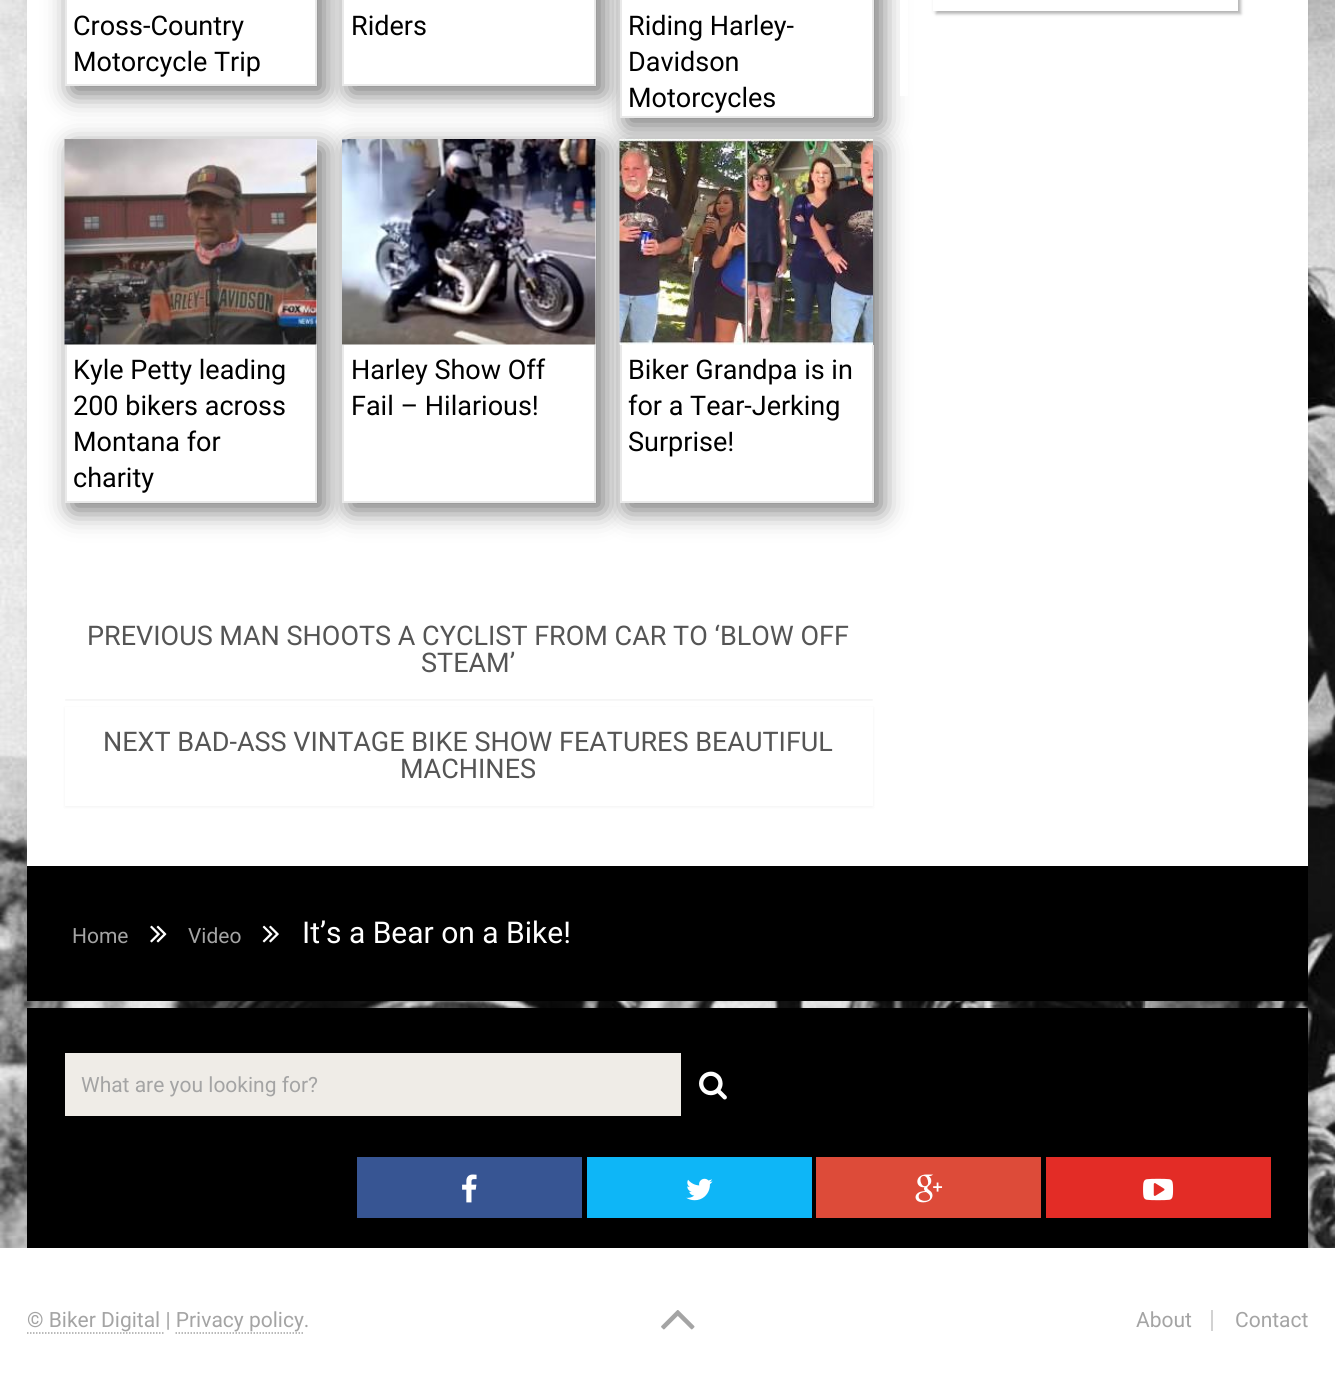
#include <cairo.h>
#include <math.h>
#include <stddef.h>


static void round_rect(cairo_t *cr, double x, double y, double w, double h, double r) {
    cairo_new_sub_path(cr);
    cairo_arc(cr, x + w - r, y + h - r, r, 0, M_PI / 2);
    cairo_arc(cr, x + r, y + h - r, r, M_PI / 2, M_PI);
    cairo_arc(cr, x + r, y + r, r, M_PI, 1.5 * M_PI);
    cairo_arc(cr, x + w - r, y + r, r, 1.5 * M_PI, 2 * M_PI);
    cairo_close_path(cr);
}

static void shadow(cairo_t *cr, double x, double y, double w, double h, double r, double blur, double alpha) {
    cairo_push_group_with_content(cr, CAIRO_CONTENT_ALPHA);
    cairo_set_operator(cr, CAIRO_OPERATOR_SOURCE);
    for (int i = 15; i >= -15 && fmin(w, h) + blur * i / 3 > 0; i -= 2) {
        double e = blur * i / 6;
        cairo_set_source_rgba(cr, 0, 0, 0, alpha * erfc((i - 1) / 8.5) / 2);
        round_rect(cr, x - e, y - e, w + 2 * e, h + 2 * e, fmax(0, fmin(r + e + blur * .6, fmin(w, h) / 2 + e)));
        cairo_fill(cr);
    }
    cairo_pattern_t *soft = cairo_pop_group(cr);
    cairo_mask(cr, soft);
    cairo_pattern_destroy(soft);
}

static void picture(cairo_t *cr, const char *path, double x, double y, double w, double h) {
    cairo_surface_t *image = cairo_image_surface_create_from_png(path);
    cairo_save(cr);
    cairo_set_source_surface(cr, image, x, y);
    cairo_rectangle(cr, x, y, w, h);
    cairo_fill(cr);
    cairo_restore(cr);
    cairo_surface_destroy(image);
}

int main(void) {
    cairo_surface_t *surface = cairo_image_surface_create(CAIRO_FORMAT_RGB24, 1335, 1380);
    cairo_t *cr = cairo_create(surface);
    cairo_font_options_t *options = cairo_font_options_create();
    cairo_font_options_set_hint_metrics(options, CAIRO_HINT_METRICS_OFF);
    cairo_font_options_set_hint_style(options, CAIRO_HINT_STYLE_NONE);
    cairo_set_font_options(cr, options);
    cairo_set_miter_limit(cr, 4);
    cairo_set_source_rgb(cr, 1, 1, 1);
    cairo_paint(cr);
    picture(cr, "img1.png", 0, 0, 1335, 1248);
    cairo_set_source_rgb(cr, 0, 0, 0);
    cairo_rectangle(cr, 27, 866, 1281, 135);
    cairo_fill(cr);
    cairo_set_source_rgb(cr, 0, 0, 0);
    shadow(cr, 27, -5, 1281, 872, 0, 1.5, 0.05);
    cairo_set_source_rgb(cr, 1, 1, 1);
    cairo_rectangle(cr, 27, 0, 1281, 866);
    cairo_fill(cr);
    cairo_set_source_rgb(cr, 0.439, 0.439, 0.439);
    shadow(cr, 72, -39, 252, 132, 0, 13, 1);
    cairo_set_source_rgb(cr, 1, 1, 1);
    cairo_rectangle(cr, 67, 0, 248, 84);
    cairo_fill(cr);
    cairo_set_source_rgb(cr, 0.439, 0.439, 0.439);
    shadow(cr, 350, -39, 253, 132, 0, 13, 1);
    cairo_set_source_rgb(cr, 0.914, 0.914, 0.914);
    cairo_rectangle(cr, 315, 0, 2, 86);
    cairo_fill(cr);
    cairo_rectangle(cr, 65, 84, 252, 2);
    cairo_fill(cr);
    cairo_rectangle(cr, 65, 0, 2, 86);
    cairo_fill(cr);
    cairo_select_font_face(cr, "Roboto", CAIRO_FONT_SLANT_NORMAL, CAIRO_FONT_WEIGHT_NORMAL);
    cairo_set_font_size(cr, 27);
    cairo_set_source_rgb(cr, 0, 0, 0);
    cairo_move_to(cr, 73, 35);
    cairo_show_text(cr, "Cross-Country");
    cairo_move_to(cr, 73, 71);
    cairo_show_text(cr, "Motorcycle Trip");
    cairo_set_source_rgb(cr, 1, 1, 1);
    cairo_rectangle(cr, 344, 0, 250, 84);
    cairo_fill(cr);
    cairo_set_source_rgb(cr, 0.439, 0.439, 0.439);
    shadow(cr, 627, -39, 254, 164, 0, 13, 1);
    cairo_set_source_rgb(cr, 0.914, 0.914, 0.914);
    cairo_rectangle(cr, 594, 0, 2, 86);
    cairo_fill(cr);
    cairo_rectangle(cr, 342, 84, 254, 2);
    cairo_fill(cr);
    cairo_rectangle(cr, 342, 0, 2, 86);
    cairo_fill(cr);
    cairo_set_source_rgb(cr, 0, 0, 0);
    cairo_move_to(cr, 351, 35);
    cairo_show_text(cr, "Riders");
    cairo_set_source_rgb(cr, 1, 1, 1);
    cairo_rectangle(cr, 622, 0, 250, 116);
    cairo_fill(cr);
    cairo_set_source_rgb(cr, 0.439, 0.439, 0.439);
    shadow(cr, 72, 147, 252, 363, 0, 13, 1);
    cairo_set_source_rgb(cr, 1, 1, 1);
    cairo_rectangle(cr, 65, 140, 252, 361);
    cairo_fill(cr);
    cairo_set_source_rgb(cr, 0.439, 0.439, 0.439);
    shadow(cr, 350, 147, 253, 363, 0, 13, 1);
    cairo_set_source_rgb(cr, 1, 1, 1);
    cairo_rectangle(cr, 342, 140, 254, 361);
    cairo_fill(cr);
    cairo_set_source_rgb(cr, 0.439, 0.439, 0.439);
    shadow(cr, 627, 147, 254, 363, 0, 13, 1);
    cairo_set_source_rgb(cr, 0.914, 0.914, 0.914);
    cairo_rectangle(cr, 872, 0, 2, 117);
    cairo_fill(cr);
    cairo_rectangle(cr, 620, 116, 253, 2);
    cairo_fill(cr);
    cairo_rectangle(cr, 620, 0, 2, 117);
    cairo_fill(cr);
    cairo_set_source_rgb(cr, 0, 0, 0);
    cairo_move_to(cr, 628, 35);
    cairo_show_text(cr, "Riding Harley-");
    cairo_move_to(cr, 628, 71);
    cairo_show_text(cr, "Davidson");
    cairo_move_to(cr, 628, 107);
    cairo_show_text(cr, "Motorcycles");
    picture(cr, "img2.png", 64, 139, 253, 206);
    cairo_set_source_rgb(cr, 0.914, 0.914, 0.914);
    cairo_rectangle(cr, 315, 345, 2, 158);
    cairo_fill(cr);
    cairo_rectangle(cr, 65, 501, 252, 2);
    cairo_fill(cr);
    cairo_rectangle(cr, 65, 345, 2, 158);
    cairo_fill(cr);
    cairo_set_source_rgb(cr, 0, 0, 0);
    cairo_move_to(cr, 73, 379);
    cairo_show_text(cr, "Kyle Petty leading");
    cairo_move_to(cr, 73, 415);
    cairo_show_text(cr, "200 bikers across");
    cairo_move_to(cr, 73, 451);
    cairo_show_text(cr, "Montana for");
    cairo_move_to(cr, 73, 487);
    cairo_show_text(cr, "charity");
    picture(cr, "img3.png", 342, 139, 254, 206);
    cairo_set_source_rgb(cr, 0.914, 0.914, 0.914);
    cairo_rectangle(cr, 594, 345, 2, 158);
    cairo_fill(cr);
    cairo_rectangle(cr, 342, 501, 254, 2);
    cairo_fill(cr);
    cairo_rectangle(cr, 342, 345, 2, 158);
    cairo_fill(cr);
    cairo_set_source_rgb(cr, 0, 0, 0);
    cairo_move_to(cr, 351, 379);
    cairo_show_text(cr, "Harley Show Off");
    cairo_move_to(cr, 351, 415);
    cairo_show_text(cr, "Fail – Hilarious!");
    cairo_set_source_rgb(cr, 1, 1, 1);
    cairo_rectangle(cr, 620, 344, 253, 157);
    cairo_fill(cr);
    picture(cr, "img4.png", 619, 139, 254, 206);
    cairo_set_source_rgb(cr, 0.914, 0.914, 0.914);
    cairo_rectangle(cr, 872, 345, 2, 158);
    cairo_fill(cr);
    cairo_rectangle(cr, 620, 501, 253, 2);
    cairo_fill(cr);
    cairo_rectangle(cr, 620, 345, 2, 158);
    cairo_fill(cr);
    cairo_set_source_rgb(cr, 0, 0, 0);
    cairo_move_to(cr, 628, 379);
    cairo_show_text(cr, "Biker Grandpa is in");
    cairo_move_to(cr, 628, 415);
    cairo_show_text(cr, "for a Tear-Jerking");
    cairo_move_to(cr, 628, 451);
    cairo_show_text(cr, "Surprise!");
    cairo_save(cr);
    cairo_rectangle(cr, 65, 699, 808, 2);
    cairo_clip(cr);
    cairo_set_source_rgb(cr, 0, 0, 0);
    shadow(cr, 65, 602, 808, 99, 0, 1.5, 0.05);
    cairo_restore(cr);
    cairo_set_source_rgb(cr, 0.333, 0.333, 0.333);
    cairo_move_to(cr, 87, 645);
    cairo_show_text(cr, "PREVIOUS MAN SHOOTS A CYCLIST FROM CAR TO ‘BLOW OFF");
    cairo_move_to(cr, 421, 672);
    cairo_show_text(cr, "STEAM’");
    cairo_set_source_rgb(cr, 0, 0, 0);
    shadow(cr, 65, 708, 808, 99, 0, 1.5, 0.05);
    cairo_set_source_rgb(cr, 1, 1, 1);
    cairo_rectangle(cr, 65, 707, 808, 99);
    cairo_fill(cr);
    cairo_set_source_rgb(cr, 0.333, 0.333, 0.333);
    cairo_move_to(cr, 103, 751);
    cairo_show_text(cr, "NEXT BAD-ASS VINTAGE BIKE SHOW FEATURES BEAUTIFUL");
    cairo_move_to(cr, 400, 778);
    cairo_show_text(cr, "MACHINES");
    cairo_set_source_rgb(cr, 1, 1, 1);
    cairo_rectangle(cr, 900, 0, 8, 96);
    cairo_fill(cr);
    cairo_set_source_rgb(cr, 0.733, 0.733, 0.733);
    shadow(cr, 936, -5, 305, 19, 0, 1.5, 1);
    cairo_set_source_rgb(cr, 0, 0, 0);
    shadow(cr, 933, -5, 305, 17, 0, 1.5, 0.05);
    cairo_set_source_rgb(cr, 1, 1, 1);
    cairo_rectangle(cr, 933, 0, 305, 11);
    cairo_fill(cr);
    cairo_set_font_size(cr, 21);
    cairo_set_source_rgb(cr, 0.643, 0.643, 0.643);
    cairo_move_to(cr, 72, 943);
    cairo_show_text(cr, "Home");
    picture(cr, "img5.png", 150, 925, 17, 18);
    cairo_move_to(cr, 188, 943);
    cairo_show_text(cr, "Video");
    picture(cr, "img6.png", 262, 925, 17, 18);
    cairo_set_font_size(cr, 30);
    cairo_set_source_rgb(cr, 1, 1, 1);
    cairo_move_to(cr, 302, 943);
    cairo_show_text(cr, "It’s a Bear on a Bike!");
    cairo_set_source_rgb(cr, 0, 0, 0);
    cairo_rectangle(cr, 27, 1008, 1281, 240);
    cairo_fill(cr);
    cairo_set_source_rgb(cr, 0.937, 0.922, 0.906);
    cairo_rectangle(cr, 65, 1053, 616, 63);
    cairo_fill(cr);
    cairo_set_font_size(cr, 21);
    cairo_set_source_rgb(cr, 0.643, 0.643, 0.643);
    cairo_move_to(cr, 81, 1092);
    cairo_show_text(cr, "What are you looking for?");
    picture(cr, "img7.png", 699, 1071, 28, 29);
    cairo_set_source_rgb(cr, 0.216, 0.333, 0.576);
    cairo_rectangle(cr, 357, 1157, 225, 61);
    cairo_fill(cr);
    picture(cr, "img8.png", 462, 1174, 15, 29);
    cairo_set_source_rgb(cr, 0.055, 0.714, 0.965);
    cairo_rectangle(cr, 587, 1157, 225, 61);
    cairo_fill(cr);
    picture(cr, "img9.png", 686, 1178, 27, 23);
    cairo_set_source_rgb(cr, 0.867, 0.294, 0.224);
    cairo_rectangle(cr, 816, 1157, 225, 61);
    cairo_fill(cr);
    picture(cr, "img10.png", 915, 1174, 28, 29);
    cairo_set_source_rgb(cr, 0.89, 0.173, 0.149);
    cairo_rectangle(cr, 1046, 1157, 225, 61);
    cairo_fill(cr);
    picture(cr, "img11.png", 1143, 1178, 31, 23);
    cairo_set_source_rgb(cr, 0.643, 0.643, 0.643);
    cairo_move_to(cr, 27, 1327);
    cairo_show_text(cr, "© Biker Digital | Privacy policy.");
    cairo_new_path(cr);
    cairo_move_to(cr, 27, 1333);
    cairo_line_to(cr, 165, 1333);
    cairo_set_line_width(cr, 1.5);
    cairo_set_dash(cr, (double[]){1.5, 1.5}, 2, 0);
    cairo_stroke(cr);
    cairo_new_path(cr);
    cairo_move_to(cr, 175.5, 1333);
    cairo_line_to(cr, 303, 1333);
    cairo_stroke(cr);
    picture(cr, "img12.png", 661, 1310, 34, 20);
    cairo_set_source_rgb(cr, 0.824, 0.824, 0.824);
    cairo_rectangle(cr, 1211, 1310, 2, 21);
    cairo_fill(cr);
    cairo_set_source_rgb(cr, 0.643, 0.643, 0.643);
    cairo_move_to(cr, 1136, 1327);
    cairo_show_text(cr, "About");
    cairo_move_to(cr, 1235, 1327);
    cairo_show_text(cr, "Contact");
    cairo_surface_write_to_png(surface, "page.png");
    cairo_font_options_destroy(options);
    cairo_destroy(cr);
    cairo_surface_destroy(surface);
    return 0;
}
